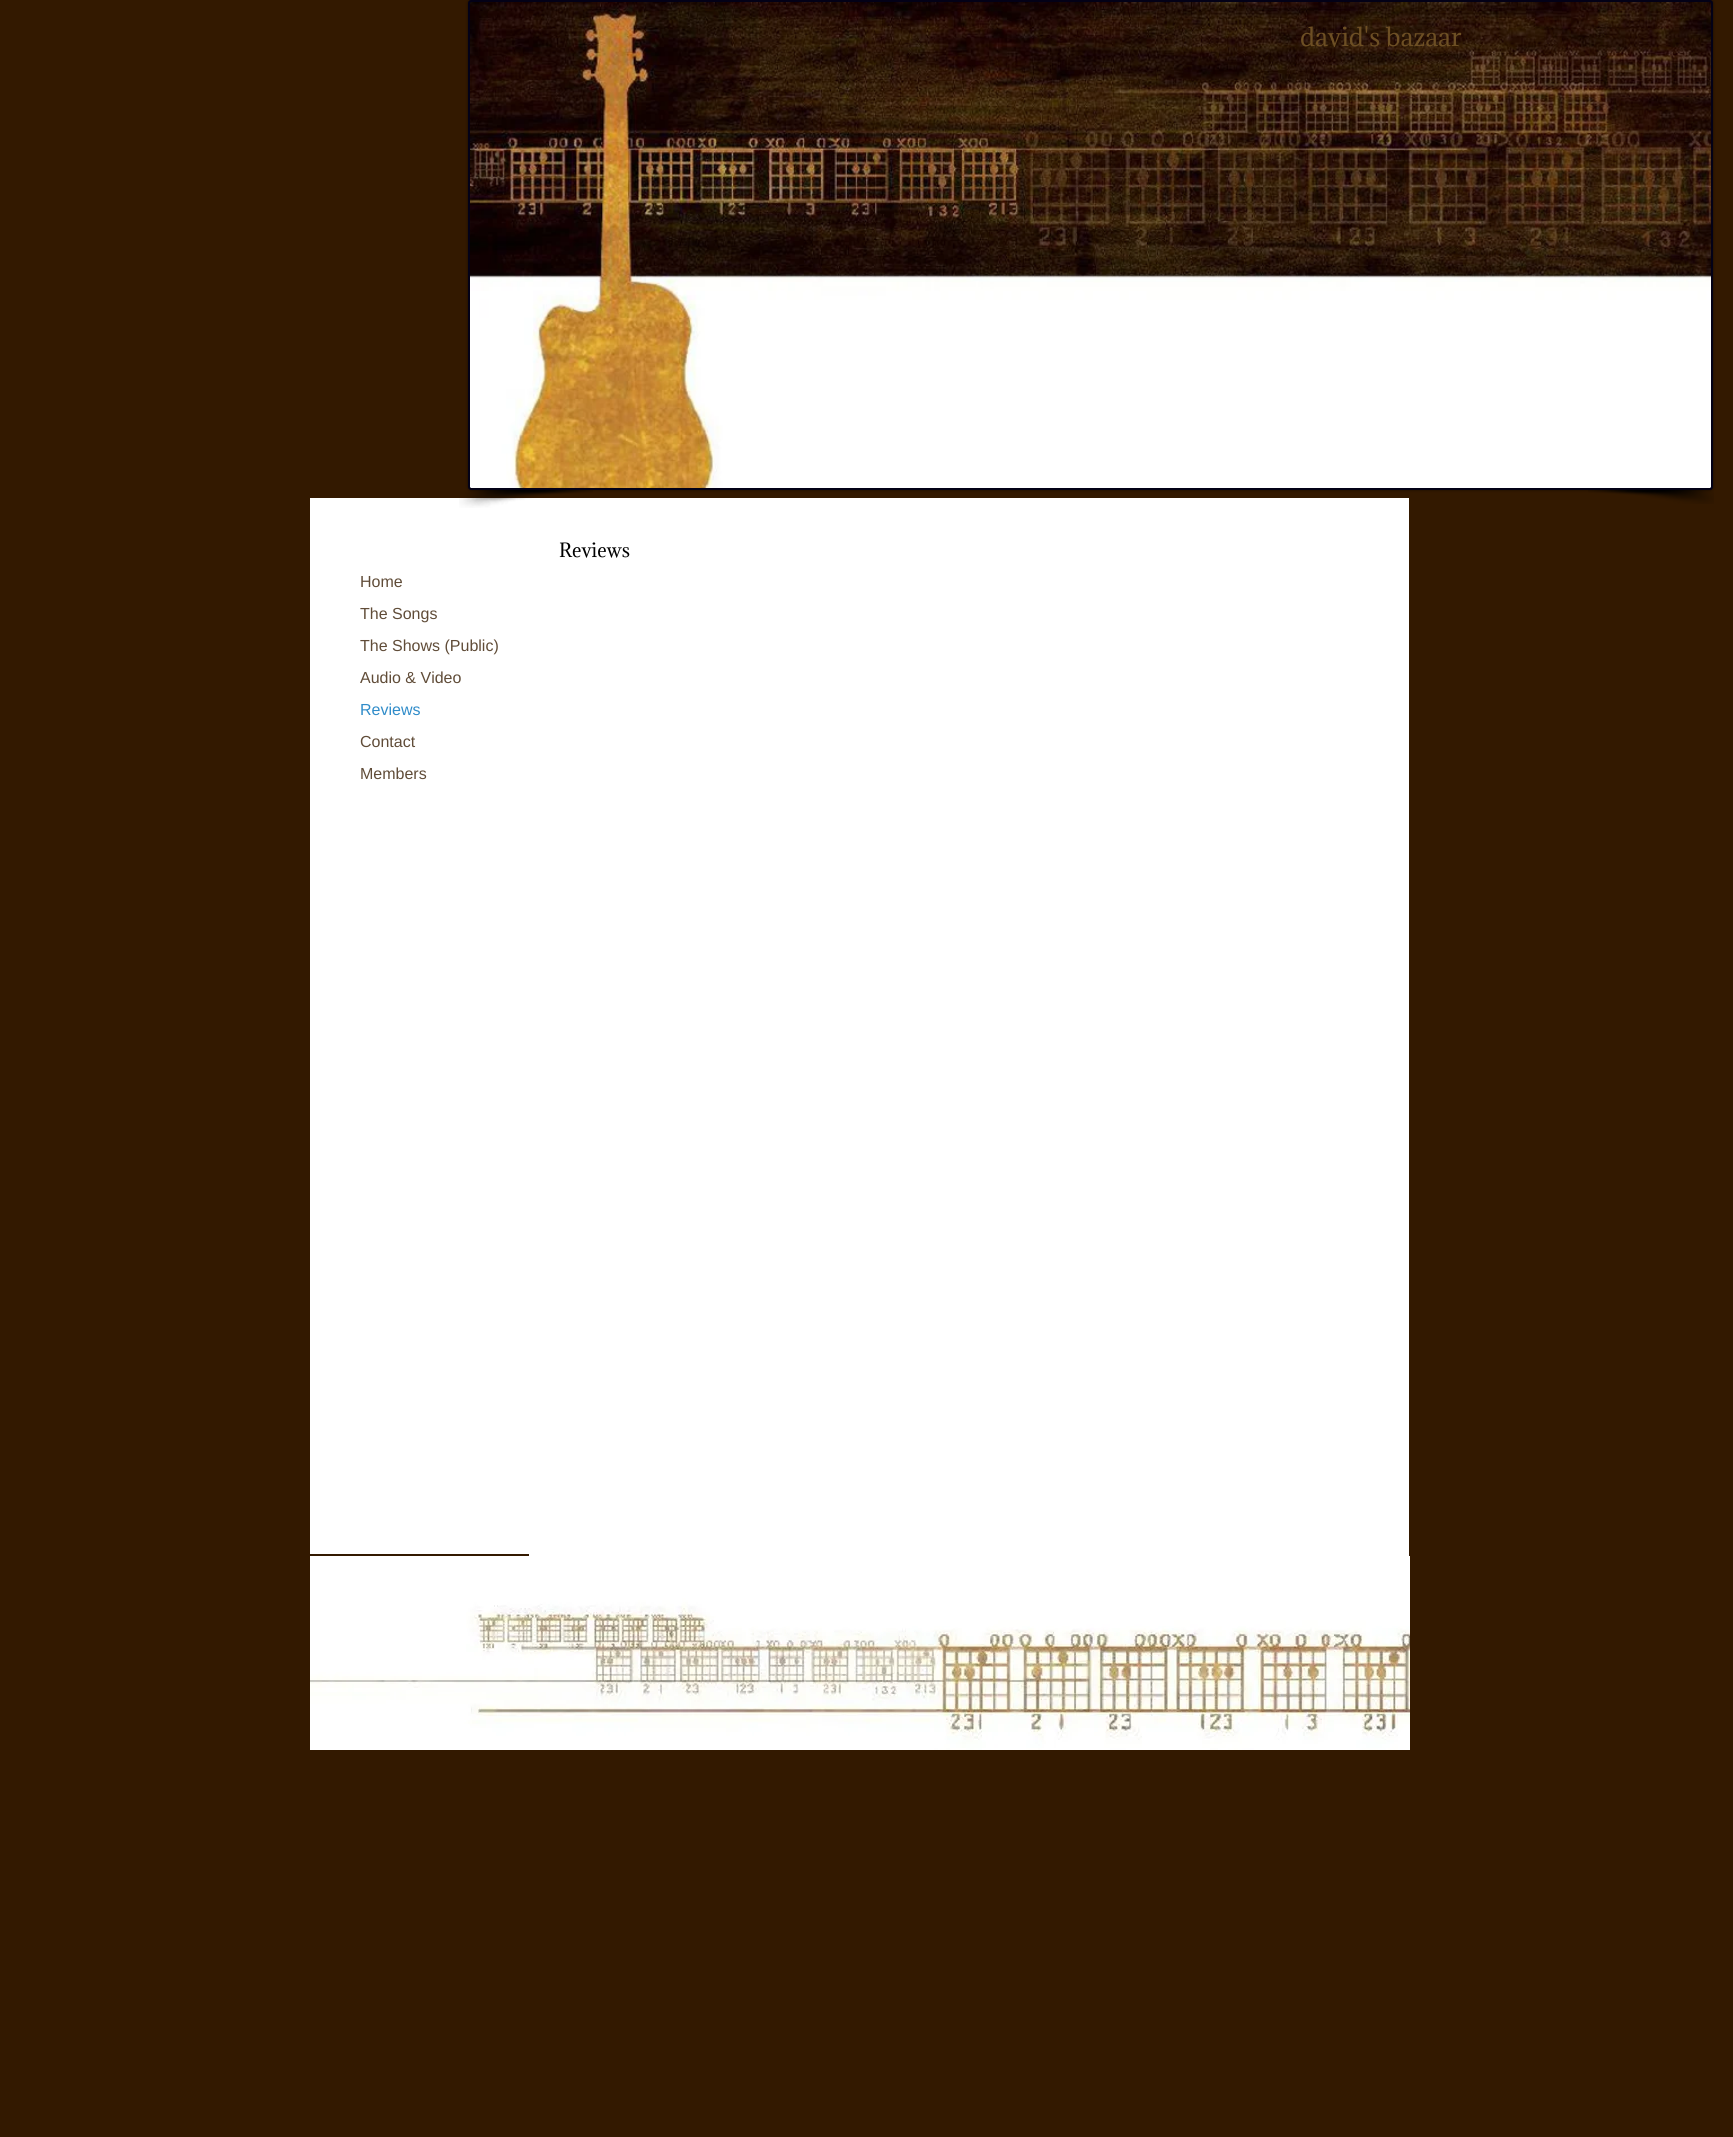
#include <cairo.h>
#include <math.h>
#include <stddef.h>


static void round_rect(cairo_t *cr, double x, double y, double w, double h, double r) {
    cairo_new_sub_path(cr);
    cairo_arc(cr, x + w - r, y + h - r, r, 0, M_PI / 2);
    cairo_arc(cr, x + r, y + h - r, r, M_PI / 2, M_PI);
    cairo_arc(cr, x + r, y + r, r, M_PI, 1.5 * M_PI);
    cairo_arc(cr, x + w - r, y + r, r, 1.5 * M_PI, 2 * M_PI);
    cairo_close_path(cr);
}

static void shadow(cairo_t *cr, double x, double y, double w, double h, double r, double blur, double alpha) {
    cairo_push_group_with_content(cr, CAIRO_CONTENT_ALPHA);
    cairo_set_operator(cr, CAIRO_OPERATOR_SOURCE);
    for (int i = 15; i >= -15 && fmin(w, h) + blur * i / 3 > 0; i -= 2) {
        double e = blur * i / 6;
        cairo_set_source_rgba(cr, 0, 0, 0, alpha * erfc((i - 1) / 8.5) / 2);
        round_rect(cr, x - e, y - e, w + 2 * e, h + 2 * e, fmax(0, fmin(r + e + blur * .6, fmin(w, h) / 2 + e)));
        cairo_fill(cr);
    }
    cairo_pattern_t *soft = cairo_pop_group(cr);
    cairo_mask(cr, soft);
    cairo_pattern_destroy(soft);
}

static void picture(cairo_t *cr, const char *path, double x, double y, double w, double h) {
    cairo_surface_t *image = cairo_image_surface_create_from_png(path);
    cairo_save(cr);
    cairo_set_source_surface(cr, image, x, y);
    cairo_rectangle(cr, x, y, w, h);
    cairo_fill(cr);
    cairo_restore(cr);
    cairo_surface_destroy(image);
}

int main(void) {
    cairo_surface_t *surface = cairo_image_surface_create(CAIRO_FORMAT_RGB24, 1733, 2137);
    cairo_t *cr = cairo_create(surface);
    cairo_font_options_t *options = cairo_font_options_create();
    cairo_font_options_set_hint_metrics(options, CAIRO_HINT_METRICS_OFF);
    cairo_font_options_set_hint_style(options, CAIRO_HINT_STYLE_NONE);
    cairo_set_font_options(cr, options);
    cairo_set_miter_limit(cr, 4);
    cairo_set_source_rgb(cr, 0.2, 0.098, 0);
    cairo_paint(cr);
    cairo_set_source_rgb(cr, 0, 0, 0);
    shadow(cr, 468, 0, 1245, 490, 3, 1.5, 0.5);
    cairo_set_source_rgb(cr, 0.012, 0.004, 0.09);
    round_rect(cr, 469, 1, 1243, 488, 2);
    cairo_fill_preserve(cr);
    cairo_stroke(cr);
    picture(cr, "img1.png", 470, 2, 1241, 486);
    cairo_set_source_rgb(cr, 1, 1, 1);
    cairo_rectangle(cr, 529, 498, 880, 1058);
    cairo_fill(cr);
    cairo_rectangle(cr, 310, 498, 219, 1056);
    cairo_fill(cr);
    picture(cr, "img2.png", 459, 490, 134, 18);
    picture(cr, "img3.png", 1588, 490, 126, 14);
    cairo_select_font_face(cr, "Adamina", CAIRO_FONT_SLANT_NORMAL, CAIRO_FONT_WEIGHT_NORMAL);
    cairo_set_font_size(cr, 24);
    cairo_set_source_rgb(cr, 0.427, 0.31, 0.141);
    cairo_move_to(cr, 1300, 46);
    cairo_show_text(cr, "david's bazaar");
    cairo_set_font_size(cr, 18);
    cairo_set_source_rgb(cr, 0, 0, 0);
    cairo_move_to(cr, 559, 557);
    cairo_show_text(cr, "Reviews");
    cairo_select_font_face(cr, "Liberation Sans", CAIRO_FONT_SLANT_NORMAL, CAIRO_FONT_WEIGHT_NORMAL);
    cairo_set_font_size(cr, 16);
    cairo_set_source_rgb(cr, 0.376, 0.298, 0.22);
    cairo_move_to(cr, 360, 587);
    cairo_show_text(cr, "Home");
    cairo_move_to(cr, 360, 619);
    cairo_show_text(cr, "The Songs");
    cairo_move_to(cr, 360, 651);
    cairo_show_text(cr, "The Shows (Public)");
    cairo_move_to(cr, 360, 683);
    cairo_show_text(cr, "Audio & Video");
    cairo_set_source_rgb(cr, 0.188, 0.549, 0.788);
    cairo_move_to(cr, 360, 715);
    cairo_show_text(cr, "Reviews");
    cairo_set_source_rgb(cr, 0.376, 0.298, 0.22);
    cairo_move_to(cr, 360, 747);
    cairo_show_text(cr, "Contact");
    cairo_move_to(cr, 360, 779);
    cairo_show_text(cr, "Members");
    picture(cr, "img4.png", 310, 1556, 1100, 194);
    cairo_surface_write_to_png(surface, "page.png");
    cairo_font_options_destroy(options);
    cairo_destroy(cr);
    cairo_surface_destroy(surface);
    return 0;
}
